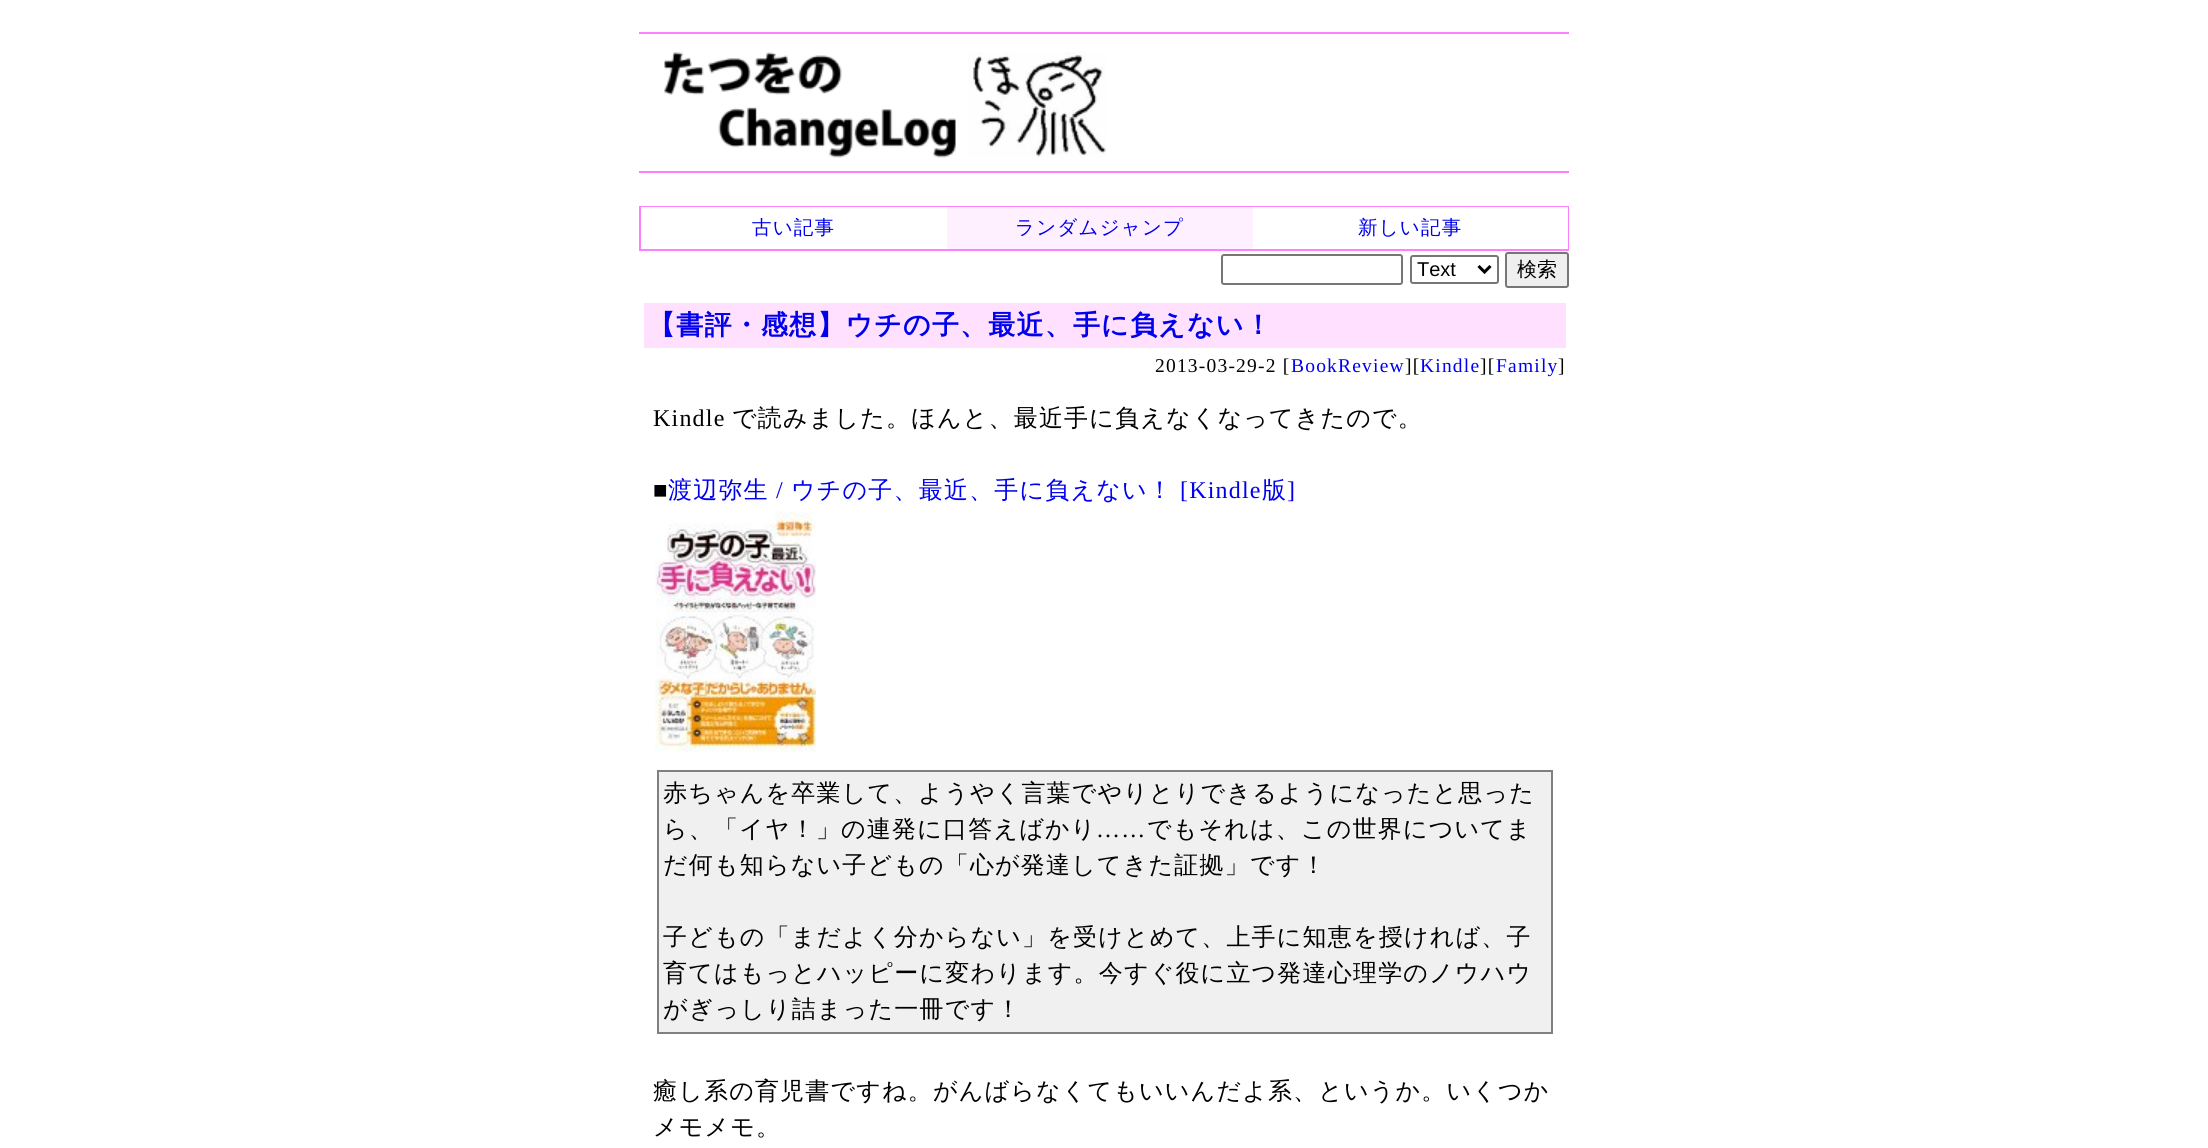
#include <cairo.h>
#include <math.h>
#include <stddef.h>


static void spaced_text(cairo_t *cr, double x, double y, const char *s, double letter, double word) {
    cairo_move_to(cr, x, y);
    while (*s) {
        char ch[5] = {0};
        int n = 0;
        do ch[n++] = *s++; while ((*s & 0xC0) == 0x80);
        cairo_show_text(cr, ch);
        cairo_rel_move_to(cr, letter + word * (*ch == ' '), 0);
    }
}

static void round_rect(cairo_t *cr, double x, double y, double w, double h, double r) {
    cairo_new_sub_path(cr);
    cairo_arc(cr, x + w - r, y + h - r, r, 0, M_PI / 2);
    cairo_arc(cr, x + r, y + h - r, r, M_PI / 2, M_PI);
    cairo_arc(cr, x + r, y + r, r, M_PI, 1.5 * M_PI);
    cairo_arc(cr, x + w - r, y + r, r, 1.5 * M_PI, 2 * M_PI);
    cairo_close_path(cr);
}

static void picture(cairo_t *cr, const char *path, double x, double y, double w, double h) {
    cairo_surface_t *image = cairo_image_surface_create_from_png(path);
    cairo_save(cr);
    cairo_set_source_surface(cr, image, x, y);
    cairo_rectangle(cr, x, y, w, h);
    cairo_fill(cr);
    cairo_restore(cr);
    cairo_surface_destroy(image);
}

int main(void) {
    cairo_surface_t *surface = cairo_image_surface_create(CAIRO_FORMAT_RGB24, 2208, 1148);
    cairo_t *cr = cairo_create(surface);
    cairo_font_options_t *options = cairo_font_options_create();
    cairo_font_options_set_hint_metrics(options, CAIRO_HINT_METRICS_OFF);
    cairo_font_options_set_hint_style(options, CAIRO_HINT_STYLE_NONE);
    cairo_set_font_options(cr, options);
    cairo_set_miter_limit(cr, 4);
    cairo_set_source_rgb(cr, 1, 1, 1);
    cairo_paint(cr);
    cairo_set_source_rgb(cr, 1, 0.502, 1);
    cairo_rectangle(cr, 639, 32, 930, 2);
    cairo_fill(cr);
    cairo_rectangle(cr, 639, 171, 930, 2);
    cairo_fill(cr);
    picture(cr, "img1.png", 664, 52, 442, 106);
    cairo_rectangle(cr, 640, 207, 928, 43);
    cairo_stroke(cr);
    cairo_set_source_rgb(cr, 1, 1, 1);
    cairo_rectangle(cr, 641, 207, 306, 1);
    cairo_fill(cr);
    cairo_select_font_face(cr, "WenQuanYi Zen Hei Medium", CAIRO_FONT_SLANT_NORMAL, CAIRO_FONT_WEIGHT_NORMAL);
    cairo_set_font_size(cr, 19.5);
    cairo_set_source_rgb(cr, 0, 0, 0.933);
    spaced_text(cr, 752, 234, "古い記事", 1.2, 0);
    cairo_set_source_rgb(cr, 1, 0.941, 1);
    cairo_rectangle(cr, 947, 207, 306, 42);
    cairo_fill(cr);
    cairo_set_source_rgb(cr, 0, 0, 0.933);
    spaced_text(cr, 1015, 234, "ランダムジャンプ", 1.2, 0);
    cairo_set_source_rgb(cr, 1, 1, 1);
    cairo_rectangle(cr, 1253, 207, 315, 42);
    cairo_fill(cr);
    cairo_set_source_rgb(cr, 0, 0, 0.933);
    spaced_text(cr, 1358, 234, "新しい記事", 1.2, 0);
    round_rect(cr, 1222, 255, 180, 29, 2);
    cairo_set_source_rgb(cr, 0.463, 0.463, 0.463);
    cairo_stroke(cr);
    round_rect(cr, 1411, 256, 87, 27, 2);
    cairo_stroke(cr);
    cairo_new_path(cr);
    cairo_move_to(cr, 1478.5, 266);
    cairo_line_to(cr, 1484.5, 272);
    cairo_line_to(cr, 1490.5, 266);
    cairo_set_source_rgb(cr, 0, 0, 0);
    cairo_set_line_width(cr, 3);
    cairo_stroke(cr);
    cairo_select_font_face(cr, "Liberation Sans", CAIRO_FONT_SLANT_NORMAL, CAIRO_FONT_WEIGHT_NORMAL);
    cairo_set_font_size(cr, 20);
    cairo_move_to(cr, 1417, 276);
    cairo_show_text(cr, "Text");
    cairo_set_source_rgb(cr, 0.937, 0.937, 0.937);
    round_rect(cr, 1506, 253, 62, 34, 2);
    cairo_fill_preserve(cr);
    cairo_set_source_rgb(cr, 0.463, 0.463, 0.463);
    cairo_set_line_width(cr, 2);
    cairo_stroke(cr);
    cairo_select_font_face(cr, "WenQuanYi Zen Hei Medium", CAIRO_FONT_SLANT_NORMAL, CAIRO_FONT_WEIGHT_NORMAL);
    cairo_set_source_rgb(cr, 0, 0, 0);
    cairo_move_to(cr, 1517, 276);
    cairo_show_text(cr, "検索");
    cairo_set_source_rgb(cr, 1, 0.878, 1);
    cairo_rectangle(cr, 644, 303, 922, 45);
    cairo_fill(cr);
    cairo_select_font_face(cr, "WenQuanYi Zen Hei", CAIRO_FONT_SLANT_NORMAL, CAIRO_FONT_WEIGHT_BOLD);
    cairo_set_font_size(cr, 27);
    cairo_set_source_rgb(cr, 0, 0, 0.933);
    spaced_text(cr, 648, 334, "【書評・感想】ウチの子、最近、手に負えない！", 1.2, 0);
    cairo_select_font_face(cr, "Liberation Serif", CAIRO_FONT_SLANT_NORMAL, CAIRO_FONT_WEIGHT_NORMAL);
    cairo_set_font_size(cr, 19.5);
    cairo_set_source_rgb(cr, 0, 0, 0);
    spaced_text(cr, 1155, 372, "2013-03-29-2 [", 1.2, 0);
    cairo_set_source_rgb(cr, 0, 0, 0.933);
    spaced_text(cr, 1291, 372, "BookReview", 1.2, 0);
    cairo_set_source_rgb(cr, 0, 0, 0);
    spaced_text(cr, 1405, 372, "][", 1.2, 0);
    cairo_set_source_rgb(cr, 0, 0, 0.933);
    spaced_text(cr, 1420, 372, "Kindle", 1.2, 0);
    cairo_set_source_rgb(cr, 0, 0, 0);
    spaced_text(cr, 1480, 372, "][", 1.2, 0);
    cairo_set_source_rgb(cr, 0, 0, 0.933);
    spaced_text(cr, 1496, 372, "Family", 1.2, 0);
    cairo_set_source_rgb(cr, 0, 0, 0);
    spaced_text(cr, 1558, 372, "]", 1.2, 0);
    cairo_set_font_size(cr, 24);
    spaced_text(cr, 653, 426, "Kindle", 1.2, 0);
    cairo_select_font_face(cr, "WenQuanYi Zen Hei Medium", CAIRO_FONT_SLANT_NORMAL, CAIRO_FONT_WEIGHT_NORMAL);
    spaced_text(cr, 732, 426, "で読みました。ほんと、最近手に負えなくなってきたので。", 1.2, 0);
    cairo_select_font_face(cr, "Liberation Serif", CAIRO_FONT_SLANT_NORMAL, CAIRO_FONT_WEIGHT_NORMAL);
    spaced_text(cr, 653, 498, "■", 1.2, 0);
    cairo_select_font_face(cr, "WenQuanYi Zen Hei Medium", CAIRO_FONT_SLANT_NORMAL, CAIRO_FONT_WEIGHT_NORMAL);
    cairo_set_source_rgb(cr, 0, 0, 0.933);
    spaced_text(cr, 668, 498, "渡辺弥生", 1.2, 0);
    cairo_select_font_face(cr, "Liberation Serif", CAIRO_FONT_SLANT_NORMAL, CAIRO_FONT_WEIGHT_NORMAL);
    spaced_text(cr, 776, 498, "/", 1.2, 0);
    cairo_select_font_face(cr, "WenQuanYi Zen Hei Medium", CAIRO_FONT_SLANT_NORMAL, CAIRO_FONT_WEIGHT_NORMAL);
    spaced_text(cr, 791, 498, "ウチの子、最近、手に負えない！", 1.2, 0);
    cairo_select_font_face(cr, "Liberation Serif", CAIRO_FONT_SLANT_NORMAL, CAIRO_FONT_WEIGHT_NORMAL);
    spaced_text(cr, 1180, 498, "[Kindle", 1.2, 0);
    cairo_select_font_face(cr, "WenQuanYi Zen Hei Medium", CAIRO_FONT_SLANT_NORMAL, CAIRO_FONT_WEIGHT_NORMAL);
    spaced_text(cr, 1262, 498, "版", 1.2, 0);
    cairo_select_font_face(cr, "Liberation Serif", CAIRO_FONT_SLANT_NORMAL, CAIRO_FONT_WEIGHT_NORMAL);
    spaced_text(cr, 1287, 498, "]", 1.2, 0);
    picture(cr, "img2.png", 655, 511, 161, 241);
    cairo_set_source_rgb(cr, 0.941, 0.941, 0.941);
    cairo_rectangle(cr, 658, 771, 894, 262);
    cairo_fill_preserve(cr);
    cairo_set_source_rgb(cr, 0.502, 0.502, 0.502);
    cairo_stroke(cr);
    cairo_select_font_face(cr, "WenQuanYi Zen Hei Medium", CAIRO_FONT_SLANT_NORMAL, CAIRO_FONT_WEIGHT_NORMAL);
    cairo_set_source_rgb(cr, 0, 0, 0);
    spaced_text(cr, 663, 801, "赤ちゃんを卒業して、ようやく言葉でやりとりできるようになったと思った", 1.2, 0);
    spaced_text(cr, 663, 837, "ら、「イヤ！」の連発に口答えばかり", 1.2, 0);
    cairo_select_font_face(cr, "Liberation Serif", CAIRO_FONT_SLANT_NORMAL, CAIRO_FONT_WEIGHT_NORMAL);
    spaced_text(cr, 1096, 837, "……", 1.2, 0);
    cairo_select_font_face(cr, "WenQuanYi Zen Hei Medium", CAIRO_FONT_SLANT_NORMAL, CAIRO_FONT_WEIGHT_NORMAL);
    spaced_text(cr, 1147, 837, "でもそれは、この世界についてま", 1.2, 0);
    spaced_text(cr, 663, 873, "だ何も知らない子どもの「心が発達してきた証拠」です！", 1.2, 0);
    spaced_text(cr, 663, 945, "子どもの「まだよく分からない」を受けとめて、上手に知恵を授ければ、子", 1.2, 0);
    spaced_text(cr, 663, 981, "育てはもっとハッピーに変わります。今すぐ役に立つ発達心理学のノウハウ", 1.2, 0);
    spaced_text(cr, 663, 1017, "がぎっしり詰まった一冊です！", 1.2, 0);
    spaced_text(cr, 653, 1099, "癒し系の育児書ですね。がんばらなくてもいいんだよ系、というか。いくつか", 1.2, 0);
    spaced_text(cr, 653, 1135, "メモメモ。", 1.2, 0);
    cairo_surface_write_to_png(surface, "page.png");
    cairo_font_options_destroy(options);
    cairo_destroy(cr);
    cairo_surface_destroy(surface);
    return 0;
}
